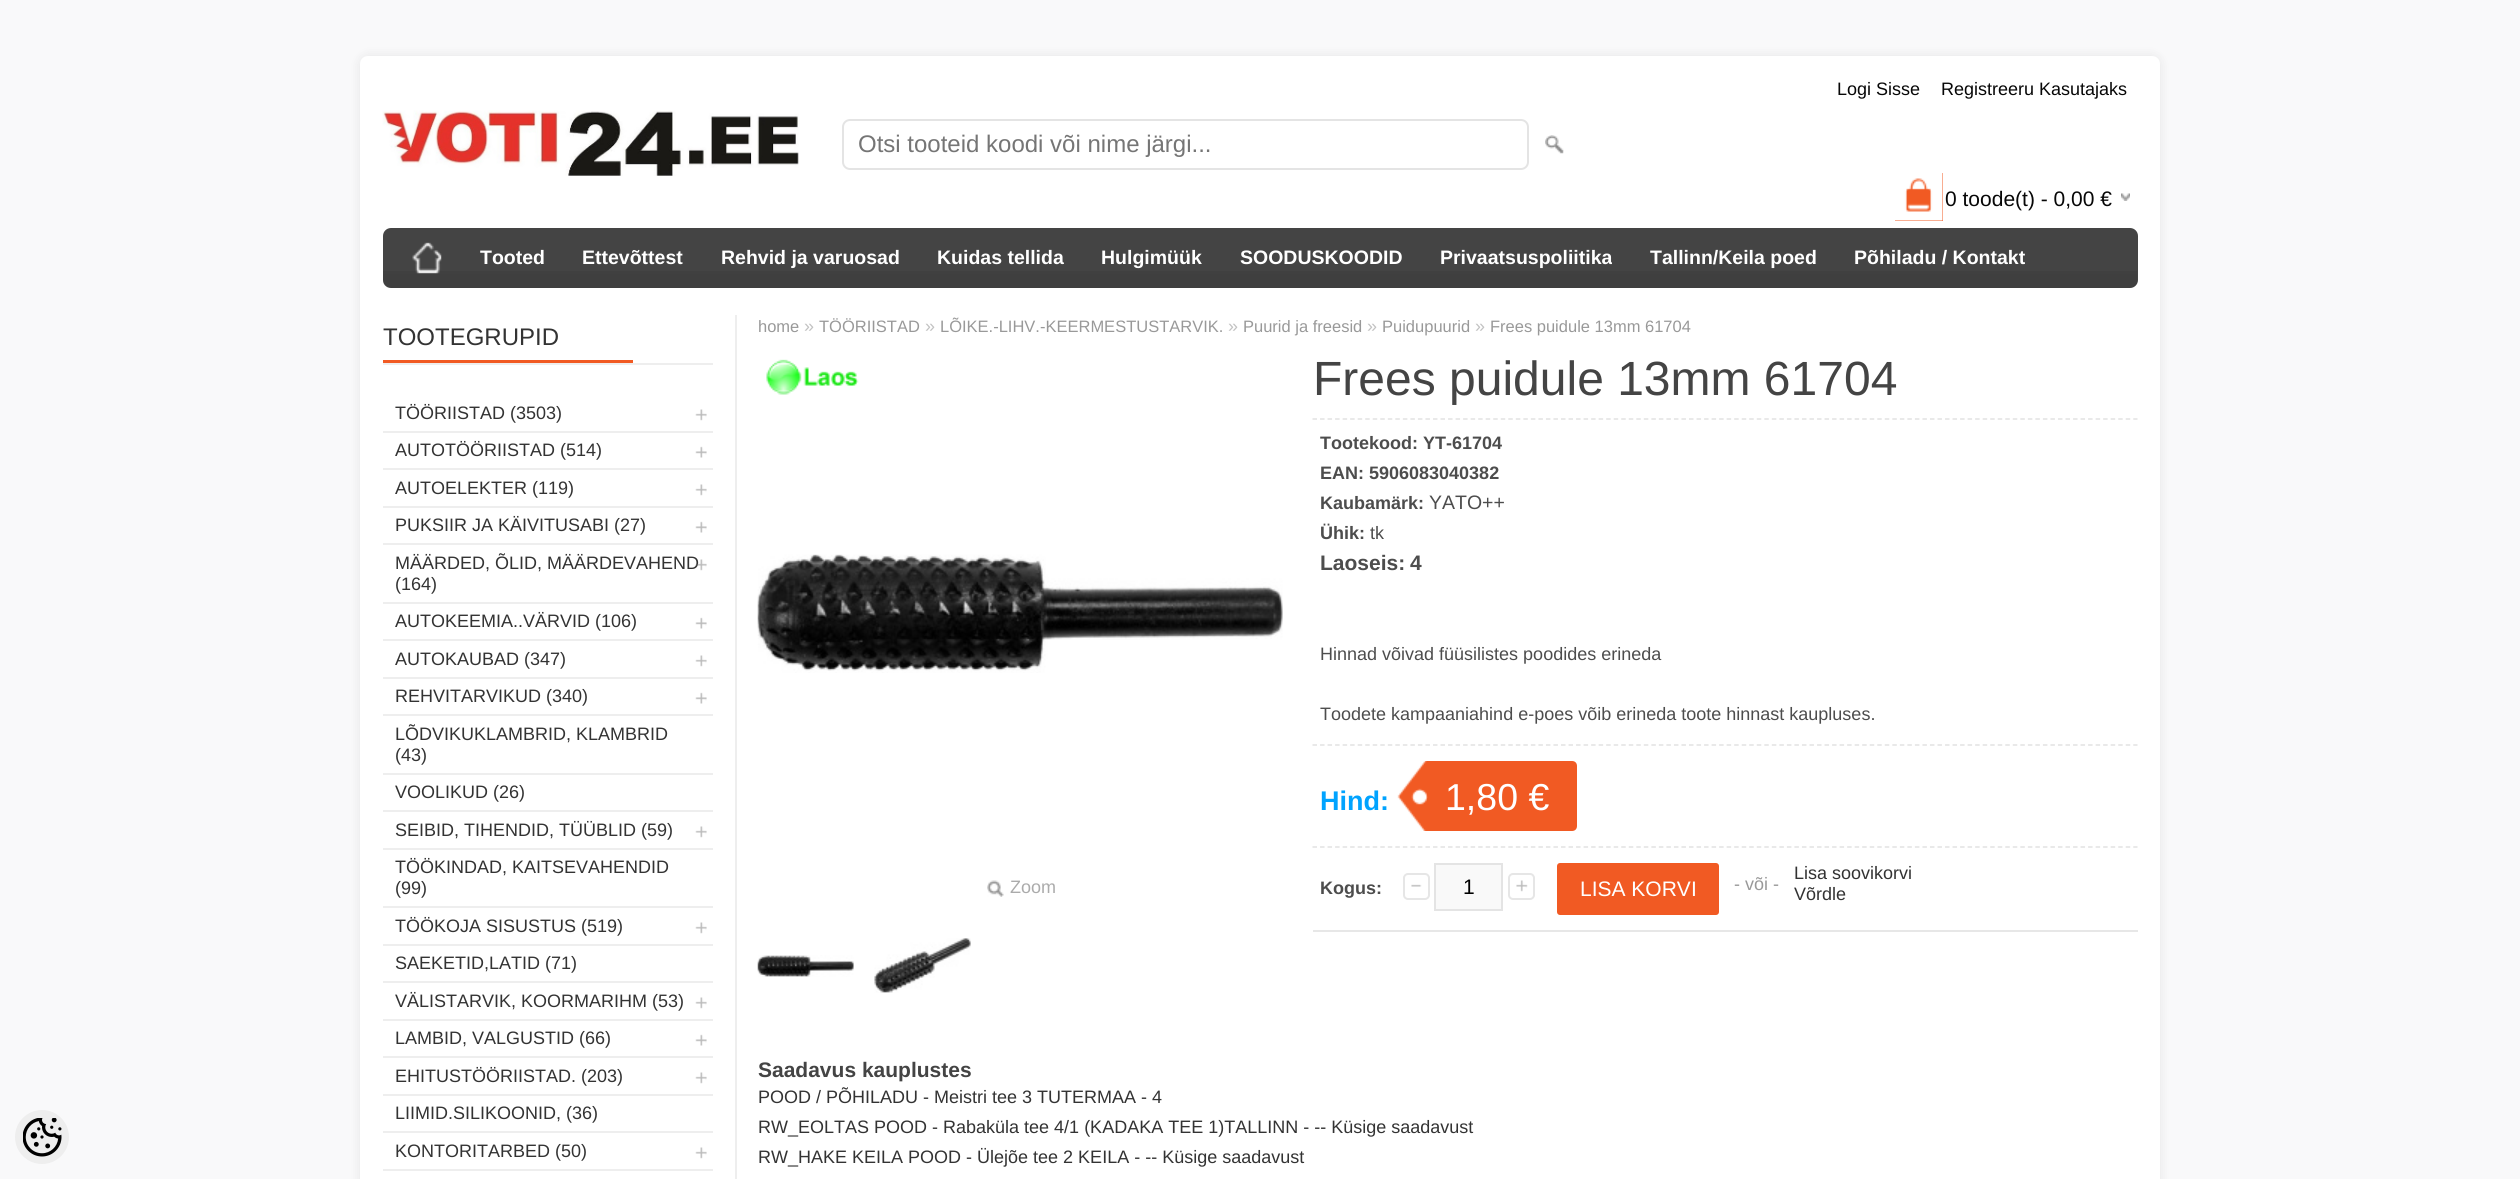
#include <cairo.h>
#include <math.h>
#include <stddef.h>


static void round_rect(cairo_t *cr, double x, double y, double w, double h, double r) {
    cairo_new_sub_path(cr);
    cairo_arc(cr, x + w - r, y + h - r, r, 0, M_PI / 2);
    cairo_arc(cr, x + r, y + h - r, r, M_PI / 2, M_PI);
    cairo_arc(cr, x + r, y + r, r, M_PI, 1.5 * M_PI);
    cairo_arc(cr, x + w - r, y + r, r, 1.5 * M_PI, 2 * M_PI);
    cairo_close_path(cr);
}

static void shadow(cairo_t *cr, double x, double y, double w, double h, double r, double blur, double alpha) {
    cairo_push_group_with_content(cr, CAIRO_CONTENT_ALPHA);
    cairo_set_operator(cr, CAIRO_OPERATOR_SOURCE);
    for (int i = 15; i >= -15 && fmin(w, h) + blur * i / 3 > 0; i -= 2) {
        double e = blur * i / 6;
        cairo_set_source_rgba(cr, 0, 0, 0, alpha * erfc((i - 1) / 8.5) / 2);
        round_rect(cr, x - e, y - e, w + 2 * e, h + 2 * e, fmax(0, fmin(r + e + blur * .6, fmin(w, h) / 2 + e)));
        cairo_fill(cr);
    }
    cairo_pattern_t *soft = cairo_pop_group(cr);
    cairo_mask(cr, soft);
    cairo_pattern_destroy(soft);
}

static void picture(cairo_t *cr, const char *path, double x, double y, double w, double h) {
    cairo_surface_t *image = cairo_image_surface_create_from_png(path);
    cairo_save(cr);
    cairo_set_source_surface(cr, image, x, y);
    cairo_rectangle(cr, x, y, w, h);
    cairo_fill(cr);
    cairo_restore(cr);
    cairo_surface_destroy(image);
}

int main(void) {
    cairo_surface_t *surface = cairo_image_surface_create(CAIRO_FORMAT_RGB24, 2520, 1179);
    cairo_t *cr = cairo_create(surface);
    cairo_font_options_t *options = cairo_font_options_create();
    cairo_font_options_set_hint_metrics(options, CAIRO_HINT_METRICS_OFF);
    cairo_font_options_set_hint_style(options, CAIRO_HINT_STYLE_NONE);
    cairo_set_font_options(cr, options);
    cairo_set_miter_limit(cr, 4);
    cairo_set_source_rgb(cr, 0.973, 0.973, 0.98);
    cairo_paint(cr);
    cairo_set_source_rgb(cr, 0.933, 0.933, 0.933);
    cairo_arc(cr, 42, 1137, 27, 0, 2 * M_PI);
    cairo_fill(cr);
    picture(cr, "img1.png", 23, 1118, 39, 39);
    cairo_set_source_rgb(cr, 0, 0, 0);
    shadow(cr, 360, 56, 1800, 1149, 8, 6, 0.08);
    cairo_set_source_rgb(cr, 1, 1, 1);
    cairo_new_path(cr);
    cairo_move_to(cr, 368, 56);
    cairo_line_to(cr, 2152, 56);
    cairo_curve_to(cr, 2156.5, 56, 2160, 59.5, 2160, 64);
    cairo_line_to(cr, 2160, 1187);
    cairo_line_to(cr, 360, 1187);
    cairo_line_to(cr, 360, 64);
    cairo_curve_to(cr, 360, 59.5, 363.5, 56, 368, 56);
    cairo_close_path(cr);
    cairo_fill(cr);
    cairo_select_font_face(cr, "Liberation Sans", CAIRO_FONT_SLANT_NORMAL, CAIRO_FONT_WEIGHT_NORMAL);
    cairo_set_font_size(cr, 18);
    cairo_set_source_rgb(cr, 0.031, 0.031, 0.031);
    cairo_move_to(cr, 1837, 95);
    cairo_show_text(cr, "Logi Sisse");
    cairo_move_to(cr, 1941, 95);
    cairo_show_text(cr, "Registreeru Kasutajaks");
    picture(cr, "img2.png", 382, 110, 417, 66);
    round_rect(cr, 843, 120, 685, 49, 7);
    cairo_set_source_rgb(cr, 0.894, 0.894, 0.894);
    cairo_stroke(cr);
    cairo_set_font_size(cr, 24);
    cairo_set_source_rgb(cr, 0.459, 0.459, 0.459);
    cairo_move_to(cr, 858, 152);
    cairo_show_text(cr, "Otsi tooteid koodi või nime järgi...");
    picture(cr, "img3.png", 1545, 135, 19, 19);
    cairo_set_source_rgb(cr, 0.945, 0.353, 0.137);
    cairo_rectangle(cr, 1895, 173, 48, 48);
    cairo_fill(cr);
    picture(cr, "img4.png", 1895, 173, 48, 48);
    picture(cr, "img5.png", 2121, 193, 9, 8);
    cairo_set_font_size(cr, 21);
    cairo_set_source_rgb(cr, 0.031, 0.031, 0.031);
    cairo_move_to(cr, 1945, 206);
    cairo_show_text(cr, "0 toode(t) - 0,00 €");
    cairo_set_source_rgb(cr, 0.267, 0.267, 0.267);
    round_rect(cr, 383, 228, 1755, 60, 8);
    cairo_fill(cr);
    picture(cr, "img6.png", 383, 271, 1754, 17);
    picture(cr, "img7.png", 412, 242, 30, 32);
    cairo_select_font_face(cr, "Liberation Sans", CAIRO_FONT_SLANT_NORMAL, CAIRO_FONT_WEIGHT_BOLD);
    cairo_set_font_size(cr, 19.5);
    cairo_set_source_rgb(cr, 1, 1, 1);
    cairo_move_to(cr, 480, 264);
    cairo_show_text(cr, "Tooted");
    cairo_move_to(cr, 582, 264);
    cairo_show_text(cr, "Ettevõttest");
    cairo_move_to(cr, 721, 264);
    cairo_show_text(cr, "Rehvid ja varuosad");
    cairo_move_to(cr, 937, 264);
    cairo_show_text(cr, "Kuidas tellida");
    cairo_move_to(cr, 1101, 264);
    cairo_show_text(cr, "Hulgimüük");
    cairo_move_to(cr, 1240, 264);
    cairo_show_text(cr, "SOODUSKOODID");
    cairo_move_to(cr, 1440, 264);
    cairo_show_text(cr, "Privaatsuspoliitika");
    cairo_move_to(cr, 1650, 264);
    cairo_show_text(cr, "Tallinn/Keila poed");
    cairo_move_to(cr, 1854, 264);
    cairo_show_text(cr, "Põhiladu / Kontakt");
    cairo_set_source_rgb(cr, 0.933, 0.933, 0.933);
    cairo_rectangle(cr, 735, 315, 2, 864);
    cairo_fill(cr);
    cairo_rectangle(cr, 383, 363, 330, 2);
    cairo_fill(cr);
    cairo_set_source_rgb(cr, 0.945, 0.353, 0.137);
    cairo_rectangle(cr, 383, 360, 250, 3);
    cairo_fill(cr);
    cairo_select_font_face(cr, "Liberation Sans", CAIRO_FONT_SLANT_NORMAL, CAIRO_FONT_WEIGHT_NORMAL);
    cairo_set_font_size(cr, 24);
    cairo_set_source_rgb(cr, 0.2, 0.2, 0.2);
    cairo_move_to(cr, 383, 345);
    cairo_show_text(cr, "TOOTEGRUPID");
    cairo_set_font_size(cr, 18);
    cairo_move_to(cr, 395, 419);
    cairo_show_text(cr, "TÖÖRIISTAD (3503)");
    picture(cr, "img8.png", 695, 409, 12, 12);
    cairo_set_source_rgb(cr, 0.933, 0.933, 0.933);
    cairo_rectangle(cr, 383, 431, 330, 2);
    cairo_fill(cr);
    cairo_set_source_rgb(cr, 0.2, 0.2, 0.2);
    cairo_move_to(cr, 395, 456);
    cairo_show_text(cr, "AUTOTÖÖRIISTAD (514)");
    picture(cr, "img9.png", 695, 446, 12, 12);
    cairo_set_source_rgb(cr, 0.933, 0.933, 0.933);
    cairo_rectangle(cr, 383, 468, 330, 2);
    cairo_fill(cr);
    cairo_set_source_rgb(cr, 0.2, 0.2, 0.2);
    cairo_move_to(cr, 395, 494);
    cairo_show_text(cr, "AUTOELEKTER (119)");
    picture(cr, "img8.png", 695, 484, 12, 12);
    cairo_set_source_rgb(cr, 0.933, 0.933, 0.933);
    cairo_rectangle(cr, 383, 506, 330, 2);
    cairo_fill(cr);
    cairo_set_source_rgb(cr, 0.2, 0.2, 0.2);
    cairo_move_to(cr, 395, 531);
    cairo_show_text(cr, "PUKSIIR JA KÄIVITUSABI (27)");
    picture(cr, "img9.png", 695, 521, 12, 12);
    cairo_set_source_rgb(cr, 0.933, 0.933, 0.933);
    cairo_rectangle(cr, 383, 543, 330, 2);
    cairo_fill(cr);
    cairo_set_source_rgb(cr, 0.2, 0.2, 0.2);
    cairo_move_to(cr, 395, 569);
    cairo_show_text(cr, "MÄÄRDED, ÕLID, MÄÄRDEVAHEND");
    cairo_move_to(cr, 395, 590);
    cairo_show_text(cr, "(164)");
    picture(cr, "img10.png", 695, 559, 12, 12);
    cairo_set_source_rgb(cr, 0.933, 0.933, 0.933);
    cairo_rectangle(cr, 383, 602, 330, 2);
    cairo_fill(cr);
    cairo_set_source_rgb(cr, 0.2, 0.2, 0.2);
    cairo_move_to(cr, 395, 627);
    cairo_show_text(cr, "AUTOKEEMIA..VÄRVID (106)");
    picture(cr, "img9.png", 695, 617, 12, 12);
    cairo_set_source_rgb(cr, 0.933, 0.933, 0.933);
    cairo_rectangle(cr, 383, 639, 330, 2);
    cairo_fill(cr);
    cairo_set_source_rgb(cr, 0.2, 0.2, 0.2);
    cairo_move_to(cr, 395, 665);
    cairo_show_text(cr, "AUTOKAUBAD (347)");
    picture(cr, "img8.png", 695, 655, 12, 12);
    cairo_set_source_rgb(cr, 0.933, 0.933, 0.933);
    cairo_rectangle(cr, 383, 677, 330, 2);
    cairo_fill(cr);
    cairo_set_source_rgb(cr, 0.2, 0.2, 0.2);
    cairo_move_to(cr, 395, 702);
    cairo_show_text(cr, "REHVITARVIKUD (340)");
    picture(cr, "img9.png", 695, 692, 12, 12);
    cairo_set_source_rgb(cr, 0.933, 0.933, 0.933);
    cairo_rectangle(cr, 383, 714, 330, 2);
    cairo_fill(cr);
    cairo_set_source_rgb(cr, 0.2, 0.2, 0.2);
    cairo_move_to(cr, 395, 740);
    cairo_show_text(cr, "LÕDVIKUKLAMBRID, KLAMBRID");
    cairo_move_to(cr, 395, 761);
    cairo_show_text(cr, "(43)");
    cairo_set_source_rgb(cr, 0.933, 0.933, 0.933);
    cairo_rectangle(cr, 383, 773, 330, 2);
    cairo_fill(cr);
    cairo_set_source_rgb(cr, 0.2, 0.2, 0.2);
    cairo_move_to(cr, 395, 798);
    cairo_show_text(cr, "VOOLIKUD (26)");
    cairo_set_source_rgb(cr, 0.933, 0.933, 0.933);
    cairo_rectangle(cr, 383, 810, 330, 2);
    cairo_fill(cr);
    cairo_set_source_rgb(cr, 0.2, 0.2, 0.2);
    cairo_move_to(cr, 395, 836);
    cairo_show_text(cr, "SEIBID, TIHENDID, TÜÜBLID (59)");
    picture(cr, "img8.png", 695, 826, 12, 12);
    cairo_set_source_rgb(cr, 0.933, 0.933, 0.933);
    cairo_rectangle(cr, 383, 848, 330, 2);
    cairo_fill(cr);
    cairo_set_source_rgb(cr, 0.2, 0.2, 0.2);
    cairo_move_to(cr, 395, 873);
    cairo_show_text(cr, "TÖÖKINDAD, KAITSEVAHENDID");
    cairo_move_to(cr, 395, 894);
    cairo_show_text(cr, "(99)");
    cairo_set_source_rgb(cr, 0.933, 0.933, 0.933);
    cairo_rectangle(cr, 383, 906, 330, 2);
    cairo_fill(cr);
    cairo_set_source_rgb(cr, 0.2, 0.2, 0.2);
    cairo_move_to(cr, 395, 932);
    cairo_show_text(cr, "TÖÖKOJA SISUSTUS (519)");
    picture(cr, "img8.png", 695, 922, 12, 12);
    cairo_set_source_rgb(cr, 0.933, 0.933, 0.933);
    cairo_rectangle(cr, 383, 944, 330, 2);
    cairo_fill(cr);
    cairo_set_source_rgb(cr, 0.2, 0.2, 0.2);
    cairo_move_to(cr, 395, 969);
    cairo_show_text(cr, "SAEKETID,LATID (71)");
    cairo_set_source_rgb(cr, 0.933, 0.933, 0.933);
    cairo_rectangle(cr, 383, 981, 330, 2);
    cairo_fill(cr);
    cairo_set_source_rgb(cr, 0.2, 0.2, 0.2);
    cairo_move_to(cr, 395, 1007);
    cairo_show_text(cr, "VÄLISTARVIK, KOORMARIHM (53)");
    picture(cr, "img8.png", 695, 997, 12, 12);
    cairo_set_source_rgb(cr, 0.933, 0.933, 0.933);
    cairo_rectangle(cr, 383, 1019, 330, 2);
    cairo_fill(cr);
    cairo_set_source_rgb(cr, 0.2, 0.2, 0.2);
    cairo_move_to(cr, 395, 1044);
    cairo_show_text(cr, "LAMBID, VALGUSTID (66)");
    picture(cr, "img9.png", 695, 1034, 12, 12);
    cairo_set_source_rgb(cr, 0.933, 0.933, 0.933);
    cairo_rectangle(cr, 383, 1056, 330, 2);
    cairo_fill(cr);
    cairo_set_source_rgb(cr, 0.2, 0.2, 0.2);
    cairo_move_to(cr, 395, 1082);
    cairo_show_text(cr, "EHITUSTÖÖRIISTAD. (203)");
    picture(cr, "img8.png", 695, 1072, 12, 12);
    cairo_set_source_rgb(cr, 0.933, 0.933, 0.933);
    cairo_rectangle(cr, 383, 1094, 330, 2);
    cairo_fill(cr);
    cairo_set_source_rgb(cr, 0.2, 0.2, 0.2);
    cairo_move_to(cr, 395, 1119);
    cairo_show_text(cr, "LIIMID.SILIKOONID, (36)");
    cairo_set_source_rgb(cr, 0.933, 0.933, 0.933);
    cairo_rectangle(cr, 383, 1131, 330, 2);
    cairo_fill(cr);
    cairo_set_source_rgb(cr, 0.2, 0.2, 0.2);
    cairo_move_to(cr, 395, 1157);
    cairo_show_text(cr, "KONTORITARBED (50)");
    picture(cr, "img8.png", 695, 1147, 12, 12);
    cairo_set_source_rgb(cr, 0.933, 0.933, 0.933);
    cairo_rectangle(cr, 383, 1169, 330, 2);
    cairo_fill(cr);
    cairo_set_font_size(cr, 16.5);
    cairo_set_source_rgb(cr, 0.6, 0.6, 0.6);
    cairo_move_to(cr, 758, 332);
    cairo_show_text(cr, "home");
    cairo_set_font_size(cr, 18);
    cairo_set_source_rgb(cr, 0.761, 0.761, 0.761);
    cairo_move_to(cr, 804, 332);
    cairo_show_text(cr, "»");
    cairo_set_font_size(cr, 16.5);
    cairo_set_source_rgb(cr, 0.6, 0.6, 0.6);
    cairo_move_to(cr, 819, 332);
    cairo_show_text(cr, "TÖÖRIISTAD");
    cairo_set_font_size(cr, 18);
    cairo_set_source_rgb(cr, 0.761, 0.761, 0.761);
    cairo_move_to(cr, 925, 332);
    cairo_show_text(cr, "»");
    cairo_set_font_size(cr, 16.5);
    cairo_set_source_rgb(cr, 0.6, 0.6, 0.6);
    cairo_move_to(cr, 940, 332);
    cairo_show_text(cr, "LÕIKE.-LIHV.-KEERMESTUSTARVIK.");
    cairo_set_font_size(cr, 18);
    cairo_set_source_rgb(cr, 0.761, 0.761, 0.761);
    cairo_move_to(cr, 1228, 332);
    cairo_show_text(cr, "»");
    cairo_set_font_size(cr, 16.5);
    cairo_set_source_rgb(cr, 0.6, 0.6, 0.6);
    cairo_move_to(cr, 1243, 332);
    cairo_show_text(cr, "Puurid ja freesid");
    cairo_set_font_size(cr, 18);
    cairo_set_source_rgb(cr, 0.761, 0.761, 0.761);
    cairo_move_to(cr, 1367, 332);
    cairo_show_text(cr, "»");
    cairo_set_font_size(cr, 16.5);
    cairo_set_source_rgb(cr, 0.6, 0.6, 0.6);
    cairo_move_to(cr, 1382, 332);
    cairo_show_text(cr, "Puidupuurid");
    cairo_set_font_size(cr, 18);
    cairo_set_source_rgb(cr, 0.761, 0.761, 0.761);
    cairo_move_to(cr, 1475, 332);
    cairo_show_text(cr, "»");
    cairo_set_font_size(cr, 16.5);
    cairo_set_source_rgb(cr, 0.6, 0.6, 0.6);
    cairo_move_to(cr, 1490, 332);
    cairo_show_text(cr, "Frees puidule 13mm 61704");
    picture(cr, "img11.png", 766, 359, 93, 36);
    picture(cr, "img12.png", 757, 554, 526, 119);
    picture(cr, "img13.png", 987, 880, 17, 17);
    cairo_set_font_size(cr, 18);
    cairo_set_source_rgb(cr, 0.671, 0.671, 0.671);
    cairo_move_to(cr, 1010, 893);
    cairo_show_text(cr, "Zoom");
    picture(cr, "img14.png", 757, 955, 97, 22);
    picture(cr, "img15.png", 874, 938, 97, 55);
    cairo_set_font_size(cr, 48);
    cairo_set_source_rgb(cr, 0.267, 0.267, 0.267);
    cairo_move_to(cr, 1313, 395);
    cairo_show_text(cr, "Frees puidule 13mm 61704");
    cairo_new_path(cr);
    cairo_move_to(cr, 1312.5, 419);
    cairo_line_to(cr, 2137.5, 419);
    cairo_set_source_rgb(cr, 0.886, 0.886, 0.886);
    cairo_set_line_width(cr, 1.5);
    cairo_set_dash(cr, (double[]){4.5, 3.03}, 2, 0);
    cairo_stroke(cr);
    cairo_new_path(cr);
    cairo_move_to(cr, 1312.5, 745);
    cairo_line_to(cr, 2137.5, 745);
    cairo_stroke(cr);
    cairo_select_font_face(cr, "Liberation Sans", CAIRO_FONT_SLANT_NORMAL, CAIRO_FONT_WEIGHT_BOLD);
    cairo_set_font_size(cr, 18);
    cairo_set_source_rgb(cr, 0.302, 0.302, 0.302);
    cairo_move_to(cr, 1320, 449);
    cairo_show_text(cr, "Tootekood: YT-61704");
    cairo_move_to(cr, 1320, 479);
    cairo_show_text(cr, "EAN: 5906083040382");
    cairo_move_to(cr, 1320, 509);
    cairo_show_text(cr, "Kaubamärk:");
    cairo_select_font_face(cr, "Liberation Sans", CAIRO_FONT_SLANT_NORMAL, CAIRO_FONT_WEIGHT_NORMAL);
    cairo_set_font_size(cr, 19.5);
    cairo_move_to(cr, 1429, 509);
    cairo_show_text(cr, "YATO++");
    cairo_select_font_face(cr, "Liberation Sans", CAIRO_FONT_SLANT_NORMAL, CAIRO_FONT_WEIGHT_BOLD);
    cairo_set_font_size(cr, 18);
    cairo_move_to(cr, 1320, 539);
    cairo_show_text(cr, "Ühik:");
    cairo_select_font_face(cr, "Liberation Sans", CAIRO_FONT_SLANT_NORMAL, CAIRO_FONT_WEIGHT_NORMAL);
    cairo_move_to(cr, 1370, 539);
    cairo_show_text(cr, "tk");
    cairo_select_font_face(cr, "Liberation Sans", CAIRO_FONT_SLANT_NORMAL, CAIRO_FONT_WEIGHT_BOLD);
    cairo_set_font_size(cr, 21);
    cairo_move_to(cr, 1320, 570);
    cairo_show_text(cr, "Laoseis:");
    cairo_move_to(cr, 1410, 570);
    cairo_show_text(cr, "4");
    cairo_select_font_face(cr, "Liberation Sans", CAIRO_FONT_SLANT_NORMAL, CAIRO_FONT_WEIGHT_NORMAL);
    cairo_set_font_size(cr, 18);
    cairo_move_to(cr, 1320, 660);
    cairo_show_text(cr, "Hinnad võivad füüsilistes poodides erineda");
    cairo_move_to(cr, 1320, 720);
    cairo_show_text(cr, "Toodete kampaaniahind e-poes võib erineda toote hinnast kaupluses.");
    cairo_new_path(cr);
    cairo_move_to(cr, 1312.5, 847);
    cairo_line_to(cr, 2137.5, 847);
    cairo_set_source_rgb(cr, 0.886, 0.886, 0.886);
    cairo_stroke(cr);
    cairo_select_font_face(cr, "Liberation Sans", CAIRO_FONT_SLANT_NORMAL, CAIRO_FONT_WEIGHT_BOLD);
    cairo_set_font_size(cr, 27);
    cairo_set_source_rgb(cr, 0, 0.639, 1);
    cairo_move_to(cr, 1320, 810);
    cairo_show_text(cr, "Hind:");
    cairo_set_source_rgb(cr, 0.945, 0.353, 0.137);
    cairo_new_path(cr);
    cairo_move_to(cr, 1397, 761);
    cairo_line_to(cr, 1572, 761);
    cairo_curve_to(cr, 1575, 761, 1577, 763, 1577, 766);
    cairo_line_to(cr, 1577, 826);
    cairo_curve_to(cr, 1577, 829, 1575, 831, 1572, 831);
    cairo_line_to(cr, 1397, 831);
    cairo_close_path(cr);
    cairo_fill(cr);
    picture(cr, "img16.png", 1397, 761, 31, 70);
    cairo_select_font_face(cr, "Liberation Sans", CAIRO_FONT_SLANT_NORMAL, CAIRO_FONT_WEIGHT_NORMAL);
    cairo_set_font_size(cr, 37.5);
    cairo_set_source_rgb(cr, 1, 1, 1);
    cairo_move_to(cr, 1445, 810);
    cairo_show_text(cr, "1,80 €");
    cairo_set_source_rgb(cr, 0.906, 0.906, 0.906);
    cairo_rectangle(cr, 1313, 930, 825, 2);
    cairo_fill(cr);
    cairo_select_font_face(cr, "Liberation Sans", CAIRO_FONT_SLANT_NORMAL, CAIRO_FONT_WEIGHT_BOLD);
    cairo_set_font_size(cr, 18);
    cairo_set_source_rgb(cr, 0.302, 0.302, 0.302);
    cairo_move_to(cr, 1320, 894);
    cairo_show_text(cr, "Kogus:");
    picture(cr, "img17.png", 1411, 884, 11, 3);
    round_rect(cr, 1404, 874, 25, 25, 4);
    cairo_set_source_rgb(cr, 0.902, 0.902, 0.902);
    cairo_set_line_width(cr, 2);
    cairo_set_dash(cr, NULL, 0, 0);
    cairo_stroke(cr);
    cairo_set_source_rgb(cr, 0.973, 0.973, 0.973);
    cairo_rectangle(cr, 1435, 864, 67, 46);
    cairo_fill_preserve(cr);
    cairo_set_source_rgb(cr, 0.894, 0.894, 0.894);
    cairo_stroke(cr);
    cairo_select_font_face(cr, "Liberation Sans", CAIRO_FONT_SLANT_NORMAL, CAIRO_FONT_WEIGHT_NORMAL);
    cairo_set_font_size(cr, 21);
    cairo_set_source_rgb(cr, 0, 0, 0);
    cairo_move_to(cr, 1463, 894);
    cairo_show_text(cr, "1");
    picture(cr, "img18.png", 1516, 880, 12, 12);
    round_rect(cr, 1509, 874, 25, 25, 4);
    cairo_set_source_rgb(cr, 0.902, 0.902, 0.902);
    cairo_stroke(cr);
    cairo_set_source_rgb(cr, 0.945, 0.353, 0.137);
    round_rect(cr, 1557, 863, 162, 52, 3);
    cairo_fill(cr);
    cairo_set_source_rgb(cr, 1, 1, 1);
    cairo_move_to(cr, 1580, 896);
    cairo_show_text(cr, "LISA KORVI");
    cairo_set_font_size(cr, 18);
    cairo_set_source_rgb(cr, 0.6, 0.6, 0.6);
    cairo_move_to(cr, 1734, 890);
    cairo_show_text(cr, "- või -");
    cairo_set_source_rgb(cr, 0.2, 0.2, 0.2);
    cairo_move_to(cr, 1794, 879);
    cairo_show_text(cr, "Lisa soovikorvi");
    cairo_move_to(cr, 1794, 900);
    cairo_show_text(cr, "Võrdle");
    cairo_select_font_face(cr, "Liberation Sans", CAIRO_FONT_SLANT_NORMAL, CAIRO_FONT_WEIGHT_BOLD);
    cairo_set_font_size(cr, 21);
    cairo_set_source_rgb(cr, 0.267, 0.267, 0.267);
    cairo_move_to(cr, 758, 1077);
    cairo_show_text(cr, "Saadavus kauplustes");
    cairo_select_font_face(cr, "Liberation Sans", CAIRO_FONT_SLANT_NORMAL, CAIRO_FONT_WEIGHT_NORMAL);
    cairo_set_font_size(cr, 18);
    cairo_set_source_rgb(cr, 0.2, 0.2, 0.2);
    cairo_move_to(cr, 758, 1103);
    cairo_show_text(cr, "POOD / PÕHILADU - Meistri tee 3 TUTERMAA - 4");
    cairo_move_to(cr, 758, 1133);
    cairo_show_text(cr, "RW_EOLTAS POOD - Rabaküla tee 4/1 (KADAKA TEE 1)TALLINN - -- Küsige saadavust");
    cairo_move_to(cr, 758, 1163);
    cairo_show_text(cr, "RW_HAKE KEILA POOD - Ülejõe tee 2 KEILA - -- Küsige saadavust");
    cairo_surface_write_to_png(surface, "page.png");
    cairo_font_options_destroy(options);
    cairo_destroy(cr);
    cairo_surface_destroy(surface);
    return 0;
}
